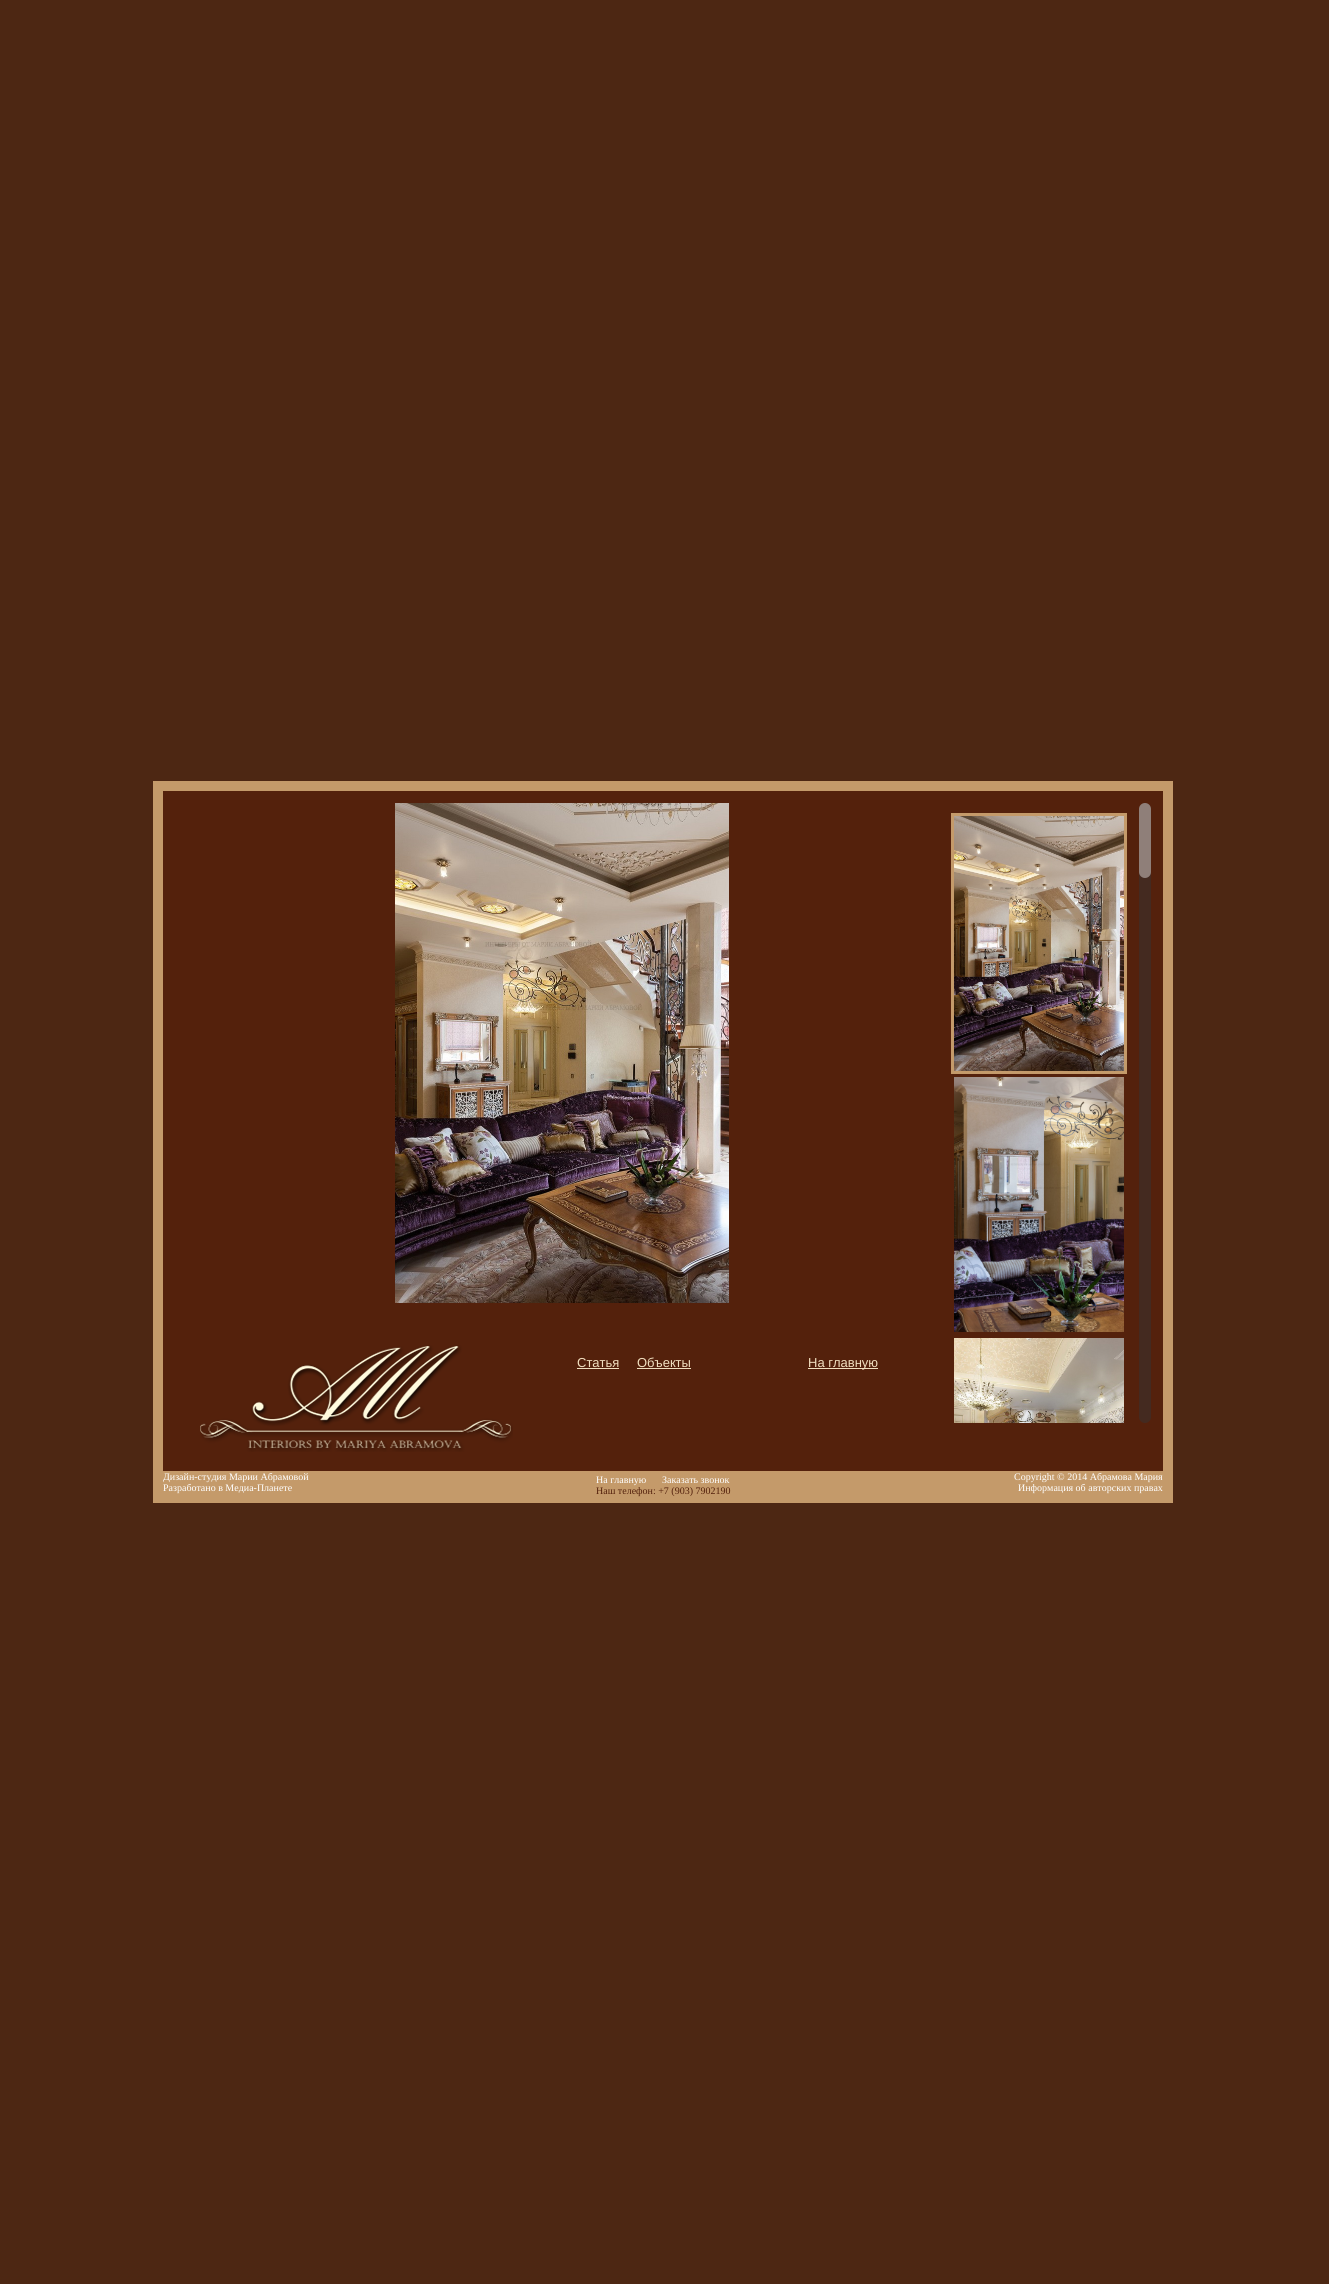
#include <cairo.h>
#include <math.h>
#include <stddef.h>


static void round_rect(cairo_t *cr, double x, double y, double w, double h, double r) {
    cairo_new_sub_path(cr);
    cairo_arc(cr, x + w - r, y + h - r, r, 0, M_PI / 2);
    cairo_arc(cr, x + r, y + h - r, r, M_PI / 2, M_PI);
    cairo_arc(cr, x + r, y + r, r, M_PI, 1.5 * M_PI);
    cairo_arc(cr, x + w - r, y + r, r, 1.5 * M_PI, 2 * M_PI);
    cairo_close_path(cr);
}

static void picture(cairo_t *cr, const char *path, double x, double y, double w, double h) {
    cairo_surface_t *image = cairo_image_surface_create_from_png(path);
    cairo_save(cr);
    cairo_set_source_surface(cr, image, x, y);
    cairo_rectangle(cr, x, y, w, h);
    cairo_fill(cr);
    cairo_restore(cr);
    cairo_surface_destroy(image);
}

int main(void) {
    cairo_surface_t *surface = cairo_image_surface_create(CAIRO_FORMAT_RGB24, 1329, 2284);
    cairo_t *cr = cairo_create(surface);
    cairo_font_options_t *options = cairo_font_options_create();
    cairo_font_options_set_hint_metrics(options, CAIRO_HINT_METRICS_OFF);
    cairo_font_options_set_hint_style(options, CAIRO_HINT_STYLE_NONE);
    cairo_set_font_options(cr, options);
    cairo_set_miter_limit(cr, 4);
    cairo_set_source_rgb(cr, 0.302, 0.153, 0.075);
    cairo_paint(cr);
    cairo_set_source_rgb(cr, 0.329, 0.129, 0.047);
    cairo_rectangle(cr, 163, 791, 1000, 680);
    cairo_fill(cr);
    picture(cr, "img1.png", 200, 1345, 313, 107);
    cairo_set_source_rgb(cr, 0.769, 0.604, 0.416);
    cairo_rectangle(cr, 163, 781, 1000, 10);
    cairo_fill(cr);
    cairo_rectangle(cr, 1163, 781, 10, 717);
    cairo_fill(cr);
    cairo_rectangle(cr, 163, 1498, 1010, 5);
    cairo_fill(cr);
    cairo_rectangle(cr, 153, 781, 10, 722);
    cairo_fill(cr);
    picture(cr, "img2.png", 395, 803, 334, 500);
    cairo_set_source_rgb(cr, 0.267, 0.165, 0.125);
    round_rect(cr, 1139, 803, 12, 620, 6);
    cairo_fill(cr);
    cairo_rectangle(cr, 952.5, 814.5, 173, 258);
    cairo_set_source_rgb(cr, 0.769, 0.604, 0.416);
    cairo_set_line_width(cr, 3);
    cairo_stroke(cr);
    picture(cr, "img3.png", 954, 816, 170, 255);
    picture(cr, "img4.png", 954, 1077, 170, 255);
    picture(cr, "img5.png", 954, 1338, 170, 85);
    cairo_set_source_rgba(cr, 1, 1, 1, 0.4);
    round_rect(cr, 1139, 803, 12, 75, 6);
    cairo_fill(cr);
    cairo_select_font_face(cr, "Liberation Sans", CAIRO_FONT_SLANT_NORMAL, CAIRO_FONT_WEIGHT_NORMAL);
    cairo_set_font_size(cr, 13);
    cairo_set_source_rgb(cr, 0.945, 0.875, 0.753);
    cairo_move_to(cr, 577, 1367);
    cairo_show_text(cr, "Статья");
    cairo_rectangle(cr, 577, 1368, 42, 1);
    cairo_fill(cr);
    cairo_move_to(cr, 637, 1367);
    cairo_show_text(cr, "Объекты");
    cairo_rectangle(cr, 637, 1368, 54, 1);
    cairo_fill(cr);
    cairo_rectangle(cr, 808, 1368, 70, 1);
    cairo_fill(cr);
    cairo_move_to(cr, 808, 1367);
    cairo_show_text(cr, "На главную");
    cairo_set_source_rgb(cr, 0.769, 0.604, 0.416);
    cairo_rectangle(cr, 163, 1471, 1000, 27);
    cairo_fill(cr);
    cairo_select_font_face(cr, "Liberation Serif", CAIRO_FONT_SLANT_NORMAL, CAIRO_FONT_WEIGHT_NORMAL);
    cairo_set_font_size(cr, 10);
    cairo_set_source_rgb(cr, 1, 1, 1);
    cairo_move_to(cr, 163, 1480);
    cairo_show_text(cr, "Дизайн-студия Марии Абрамовой");
    cairo_move_to(cr, 163, 1491);
    cairo_show_text(cr, "Разработано в Медиа-Планете");
    cairo_move_to(cr, 596, 1483);
    cairo_show_text(cr, "На главную");
    cairo_move_to(cr, 662, 1483);
    cairo_show_text(cr, "Заказать звонок");
    cairo_set_source_rgb(cr, 0.329, 0.129, 0.047);
    cairo_move_to(cr, 596, 1494);
    cairo_show_text(cr, "Наш телефон: +7 (903) 7902190");
    cairo_set_source_rgb(cr, 1, 1, 1);
    cairo_move_to(cr, 1014, 1480);
    cairo_show_text(cr, "Copyright © 2014 Абрамова Мария");
    cairo_move_to(cr, 1018, 1491);
    cairo_show_text(cr, "Информация об авторских правах");
    cairo_surface_write_to_png(surface, "page.png");
    cairo_font_options_destroy(options);
    cairo_destroy(cr);
    cairo_surface_destroy(surface);
    return 0;
}
